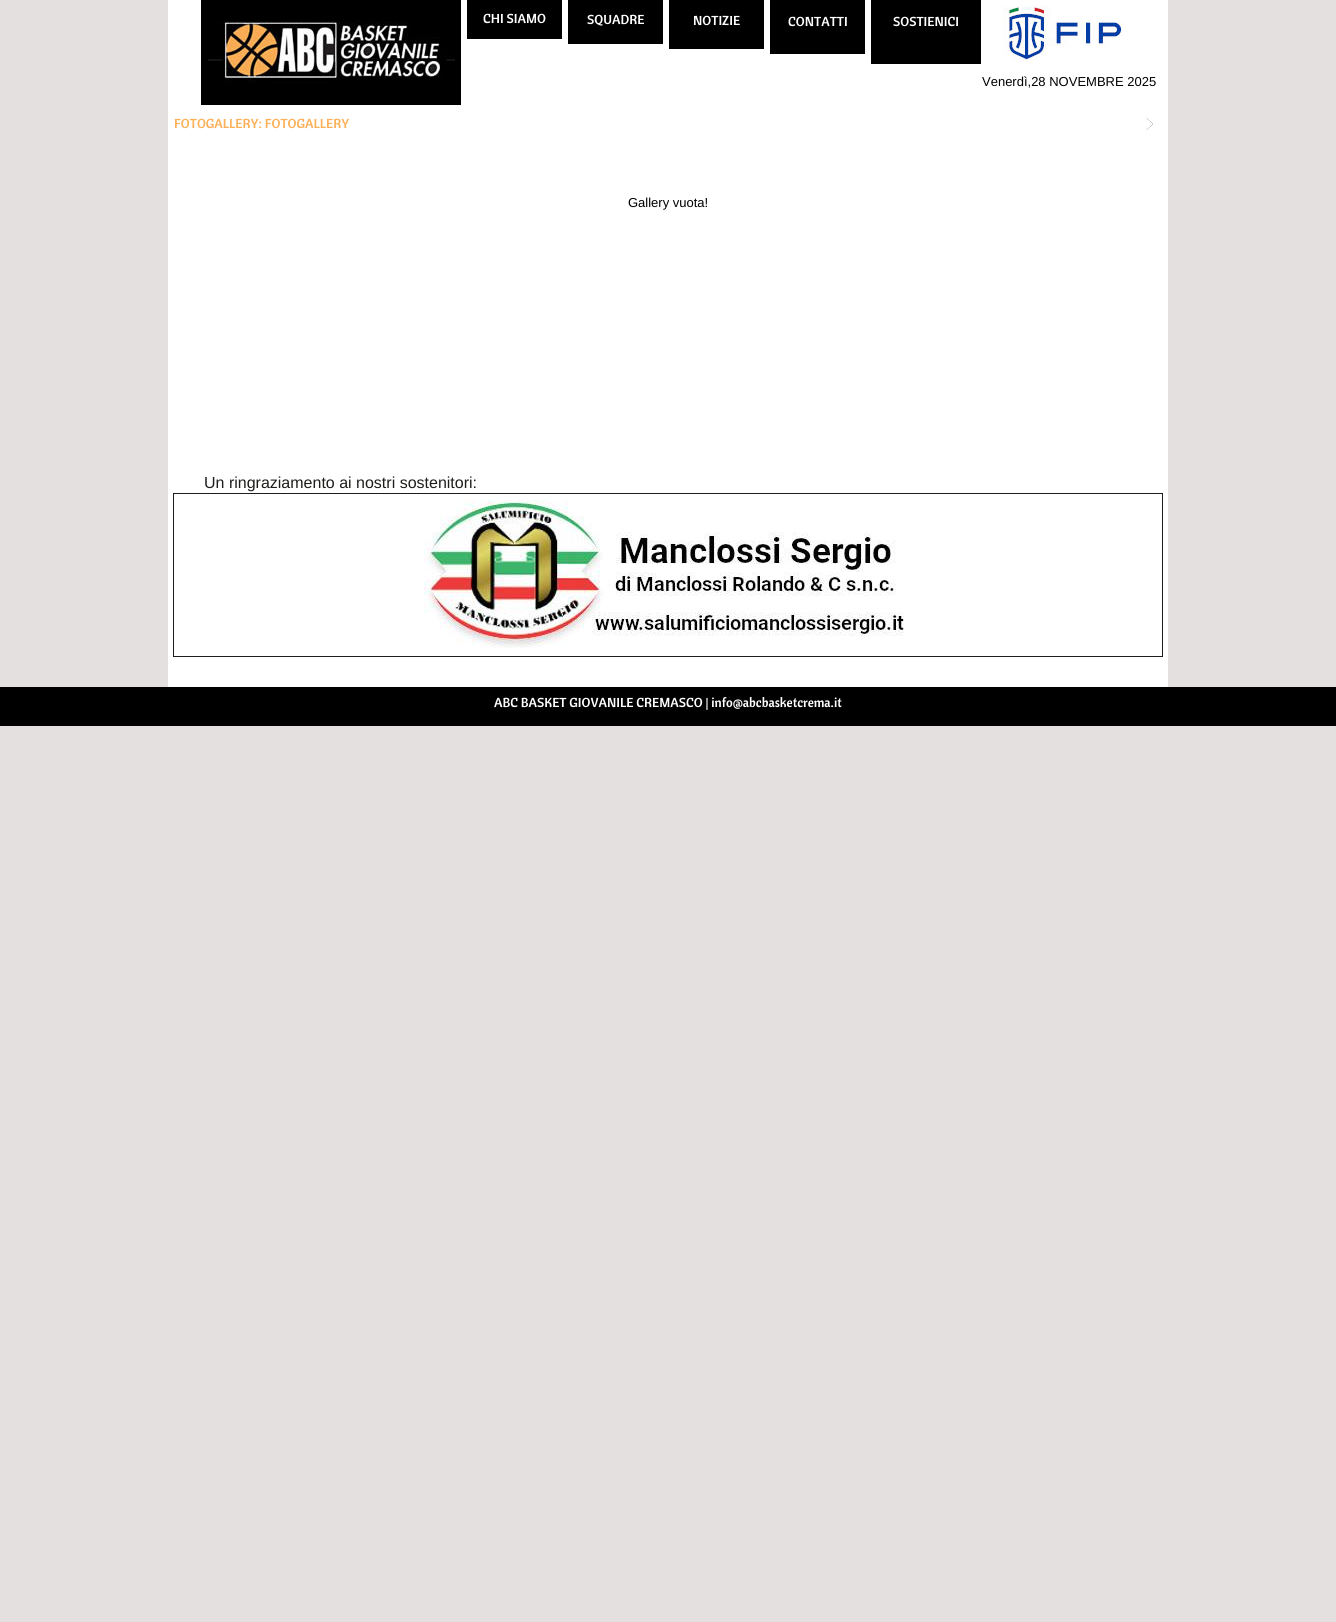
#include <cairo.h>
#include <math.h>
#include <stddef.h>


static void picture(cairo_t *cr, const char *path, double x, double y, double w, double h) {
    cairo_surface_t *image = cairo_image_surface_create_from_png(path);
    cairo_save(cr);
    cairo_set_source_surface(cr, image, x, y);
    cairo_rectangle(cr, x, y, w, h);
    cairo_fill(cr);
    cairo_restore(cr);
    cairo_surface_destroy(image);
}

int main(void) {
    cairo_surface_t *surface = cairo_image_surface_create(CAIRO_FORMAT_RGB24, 1336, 1622);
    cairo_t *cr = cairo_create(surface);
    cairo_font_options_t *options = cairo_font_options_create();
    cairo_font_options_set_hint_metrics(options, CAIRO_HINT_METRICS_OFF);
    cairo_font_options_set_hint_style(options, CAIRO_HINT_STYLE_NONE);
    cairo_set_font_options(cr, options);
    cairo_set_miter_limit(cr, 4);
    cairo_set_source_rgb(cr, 0.898, 0.878, 0.878);
    cairo_paint(cr);
    cairo_set_source_rgb(cr, 1, 1, 1);
    cairo_rectangle(cr, 168, 0, 1000, 687);
    cairo_fill(cr);
    cairo_set_source_rgb(cr, 0, 0, 0);
    cairo_rectangle(cr, 201, 0, 260, 105);
    cairo_fill(cr);
    picture(cr, "img1.png", 208, 21, 247, 62);
    cairo_rectangle(cr, 467, 0, 95, 39);
    cairo_fill(cr);
    cairo_select_font_face(cr, "Cantora One", CAIRO_FONT_SLANT_NORMAL, CAIRO_FONT_WEIGHT_NORMAL);
    cairo_set_font_size(cr, 13);
    cairo_set_source_rgb(cr, 1, 1, 1);
    cairo_move_to(cr, 483, 23);
    cairo_show_text(cr, "CHI SIAMO");
    cairo_set_source_rgb(cr, 0, 0, 0);
    cairo_rectangle(cr, 568, 0, 95, 44);
    cairo_fill(cr);
    cairo_set_source_rgb(cr, 1, 1, 1);
    cairo_move_to(cr, 587, 24);
    cairo_show_text(cr, "SQUADRE");
    cairo_set_source_rgb(cr, 0, 0, 0);
    cairo_rectangle(cr, 669, 0, 95, 49);
    cairo_fill(cr);
    cairo_set_source_rgb(cr, 1, 1, 1);
    cairo_move_to(cr, 693, 25);
    cairo_show_text(cr, "NOTIZIE");
    cairo_set_source_rgb(cr, 0, 0, 0);
    cairo_rectangle(cr, 770, 0, 95, 54);
    cairo_fill(cr);
    cairo_set_source_rgb(cr, 1, 1, 1);
    cairo_move_to(cr, 788, 26);
    cairo_show_text(cr, "CONTATTI");
    cairo_set_source_rgb(cr, 0, 0, 0);
    cairo_rectangle(cr, 871, 0, 110, 64);
    cairo_fill(cr);
    cairo_set_source_rgb(cr, 1, 1, 1);
    cairo_move_to(cr, 893, 26);
    cairo_show_text(cr, "SOSTIENICI");
    picture(cr, "img2.png", 1003, 6, 120, 54);
    cairo_select_font_face(cr, "Liberation Sans", CAIRO_FONT_SLANT_NORMAL, CAIRO_FONT_WEIGHT_NORMAL);
    cairo_set_source_rgb(cr, 0, 0, 0);
    cairo_move_to(cr, 982, 86);
    cairo_show_text(cr, "Venerdì,28 NOVEMBRE 2025");
    cairo_select_font_face(cr, "Cantora One", CAIRO_FONT_SLANT_NORMAL, CAIRO_FONT_WEIGHT_NORMAL);
    cairo_set_source_rgb(cr, 0.988, 0.69, 0.345);
    cairo_move_to(cr, 174, 128);
    cairo_show_text(cr, "FOTOGALLERY: FOTOGALLERY");
    picture(cr, "img3.png", 1146, 118, 7, 12);
    cairo_select_font_face(cr, "Liberation Sans", CAIRO_FONT_SLANT_NORMAL, CAIRO_FONT_WEIGHT_NORMAL);
    cairo_set_source_rgb(cr, 0, 0, 0);
    cairo_move_to(cr, 628, 207);
    cairo_show_text(cr, "Gallery vuota!");
    cairo_set_font_size(cr, 16);
    cairo_set_source_rgb(cr, 0.114, 0.114, 0.106);
    cairo_move_to(cr, 204, 488);
    cairo_show_text(cr, "Un ringraziamento ai nostri sostenitori:");
    cairo_rectangle(cr, 173.5, 493.5, 989, 163);
    cairo_set_line_width(cr, 1);
    cairo_stroke(cr);
    picture(cr, "img4.png", 424, 500, 480, 148);
    cairo_set_source_rgb(cr, 0, 0, 0);
    cairo_rectangle(cr, 0, 687, 1336, 39);
    cairo_fill(cr);
    cairo_select_font_face(cr, "Cantora One", CAIRO_FONT_SLANT_NORMAL, CAIRO_FONT_WEIGHT_NORMAL);
    cairo_set_font_size(cr, 13);
    cairo_set_source_rgb(cr, 1, 1, 1);
    cairo_move_to(cr, 494, 707);
    cairo_show_text(cr, "ABC BASKET GIOVANILE CREMASCO | info@abcbasketcrema.it");
    cairo_surface_write_to_png(surface, "page.png");
    cairo_font_options_destroy(options);
    cairo_destroy(cr);
    cairo_surface_destroy(surface);
    return 0;
}
